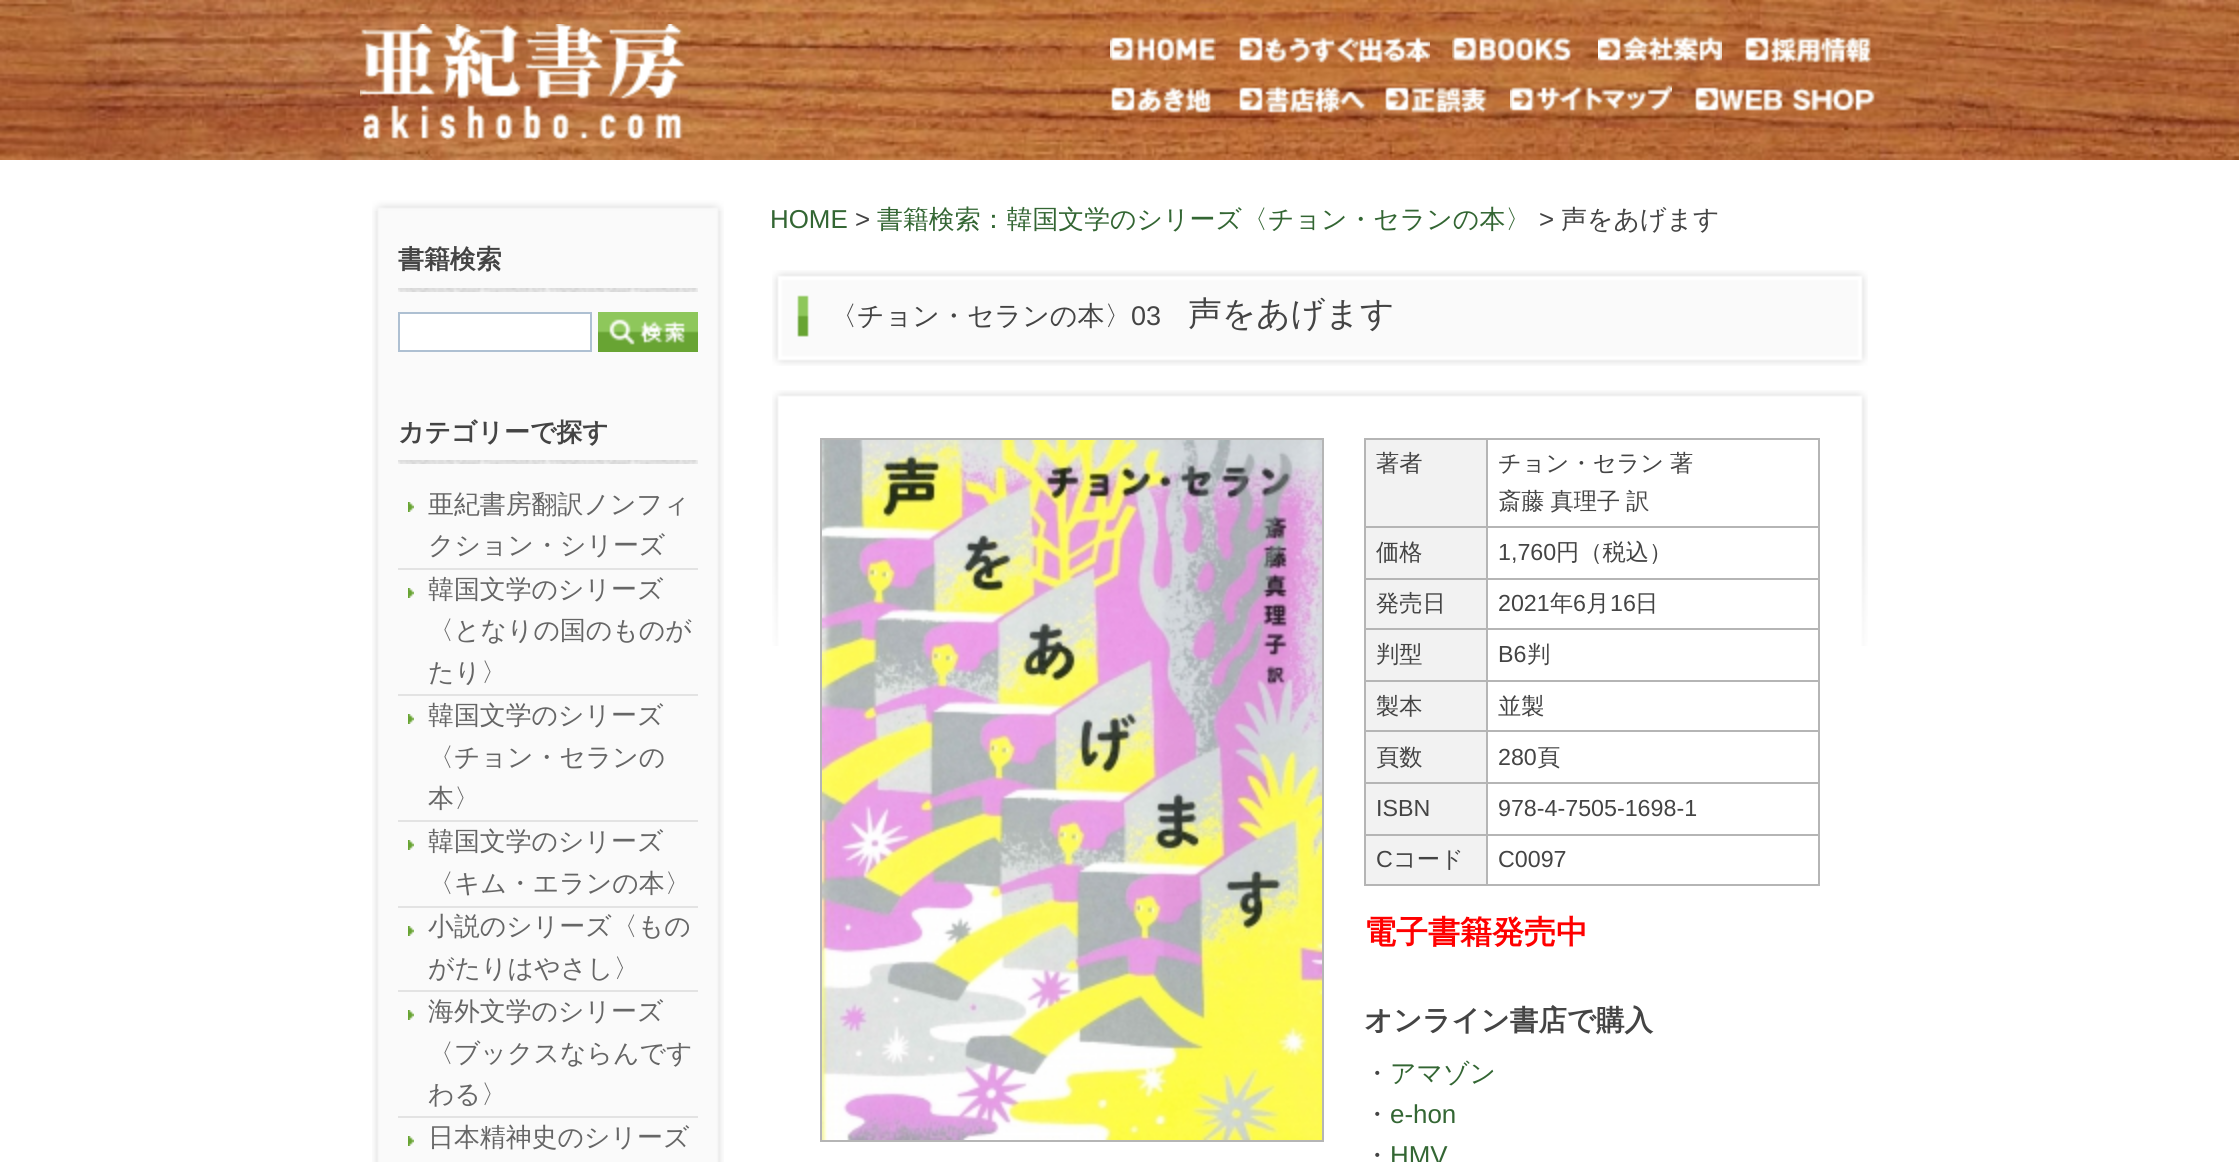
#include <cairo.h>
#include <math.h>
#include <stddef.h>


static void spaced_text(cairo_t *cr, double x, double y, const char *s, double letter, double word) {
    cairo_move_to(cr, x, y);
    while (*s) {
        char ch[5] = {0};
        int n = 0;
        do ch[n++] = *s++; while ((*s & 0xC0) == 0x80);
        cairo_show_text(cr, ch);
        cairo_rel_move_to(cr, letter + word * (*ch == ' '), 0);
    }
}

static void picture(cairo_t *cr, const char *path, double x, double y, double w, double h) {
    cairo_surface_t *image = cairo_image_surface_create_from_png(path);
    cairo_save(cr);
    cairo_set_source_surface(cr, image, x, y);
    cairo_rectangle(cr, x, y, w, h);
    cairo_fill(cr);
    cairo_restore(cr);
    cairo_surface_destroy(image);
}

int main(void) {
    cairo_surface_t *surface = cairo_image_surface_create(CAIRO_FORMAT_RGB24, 2239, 1162);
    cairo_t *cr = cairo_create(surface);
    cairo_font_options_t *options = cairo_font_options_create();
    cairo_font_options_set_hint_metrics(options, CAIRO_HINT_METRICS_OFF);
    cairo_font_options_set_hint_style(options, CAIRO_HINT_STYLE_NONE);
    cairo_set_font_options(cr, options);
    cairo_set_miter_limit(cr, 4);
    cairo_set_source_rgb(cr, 1, 1, 1);
    cairo_paint(cr);
    picture(cr, "img1.png", 0, 0, 2239, 160);
    picture(cr, "img2.png", 360, 24, 325, 116);
    picture(cr, "img3.png", 1110, 37, 106, 24);
    picture(cr, "img4.png", 1239, 37, 191, 26);
    picture(cr, "img5.png", 1452, 37, 119, 24);
    picture(cr, "img6.png", 1598, 35, 124, 28);
    picture(cr, "img7.png", 1745, 37, 127, 26);
    picture(cr, "img8.png", 1111, 87, 102, 26);
    picture(cr, "img9.png", 1239, 85, 127, 28);
    picture(cr, "img10.png", 1385, 87, 102, 26);
    picture(cr, "img11.png", 1510, 85, 162, 26);
    picture(cr, "img12.png", 1695, 87, 180, 24);
    picture(cr, "img13.png", 372, 211, 352, 951);
    picture(cr, "img14.png", 372, 200, 352, 11);
    picture(cr, "img15.png", 398, 288, 300, 4);
    cairo_select_font_face(cr, "WenQuanYi Zen Hei", CAIRO_FONT_SLANT_NORMAL, CAIRO_FONT_WEIGHT_BOLD);
    cairo_set_font_size(cr, 25.9);
    cairo_set_source_rgb(cr, 0.267, 0.267, 0.267);
    cairo_move_to(cr, 398, 268);
    cairo_show_text(cr, "書籍検索");
    cairo_set_source_rgb(cr, 1, 1, 1);
    cairo_rectangle(cr, 399, 313, 192, 38);
    cairo_fill_preserve(cr);
    cairo_set_source_rgb(cr, 0.682, 0.753, 0.824);
    cairo_stroke(cr);
    picture(cr, "img16.png", 598, 312, 100, 40);
    picture(cr, "img15.png", 398, 460, 300, 4);
    cairo_set_source_rgb(cr, 0.267, 0.267, 0.267);
    cairo_move_to(cr, 398, 441);
    cairo_show_text(cr, "カテゴリーで探す");
    picture(cr, "img17.png", 408, 502, 6, 10);
    cairo_set_source_rgb(cr, 0.89, 0.89, 0.89);
    cairo_rectangle(cr, 398, 568, 300, 2);
    cairo_fill(cr);
    cairo_select_font_face(cr, "WenQuanYi Zen Hei Medium", CAIRO_FONT_SLANT_NORMAL, CAIRO_FONT_WEIGHT_NORMAL);
    cairo_set_source_rgb(cr, 0.4, 0.4, 0.4);
    cairo_move_to(cr, 428, 513);
    cairo_show_text(cr, "亜紀書房翻訳ノンフィ");
    cairo_move_to(cr, 428, 554);
    cairo_show_text(cr, "クション・シリーズ");
    picture(cr, "img17.png", 408, 588, 6, 10);
    cairo_set_source_rgb(cr, 0.89, 0.89, 0.89);
    cairo_rectangle(cr, 398, 694, 300, 2);
    cairo_fill(cr);
    cairo_set_source_rgb(cr, 0.4, 0.4, 0.4);
    cairo_move_to(cr, 428, 598);
    cairo_show_text(cr, "韓国文学のシリーズ");
    cairo_move_to(cr, 428, 639);
    cairo_show_text(cr, "〈となりの国のものが");
    cairo_move_to(cr, 428, 681);
    cairo_show_text(cr, "たり〉");
    picture(cr, "img17.png", 408, 714, 6, 10);
    cairo_set_source_rgb(cr, 0.89, 0.89, 0.89);
    cairo_rectangle(cr, 398, 820, 300, 2);
    cairo_fill(cr);
    cairo_set_source_rgb(cr, 0.4, 0.4, 0.4);
    cairo_move_to(cr, 428, 724);
    cairo_show_text(cr, "韓国文学のシリーズ");
    cairo_move_to(cr, 428, 766);
    cairo_show_text(cr, "〈チョン・セランの");
    cairo_move_to(cr, 428, 807);
    cairo_show_text(cr, "本〉");
    picture(cr, "img17.png", 408, 840, 6, 10);
    cairo_set_source_rgb(cr, 0.89, 0.89, 0.89);
    cairo_rectangle(cr, 398, 906, 300, 2);
    cairo_fill(cr);
    cairo_set_source_rgb(cr, 0.4, 0.4, 0.4);
    cairo_move_to(cr, 428, 850);
    cairo_show_text(cr, "韓国文学のシリーズ");
    cairo_move_to(cr, 428, 892);
    cairo_show_text(cr, "〈キム・エランの本〉");
    picture(cr, "img17.png", 408, 926, 6, 10);
    cairo_set_source_rgb(cr, 0.89, 0.89, 0.89);
    cairo_rectangle(cr, 398, 990, 300, 2);
    cairo_fill(cr);
    cairo_set_source_rgb(cr, 0.4, 0.4, 0.4);
    cairo_move_to(cr, 428, 935);
    cairo_show_text(cr, "小説のシリーズ〈もの");
    cairo_move_to(cr, 428, 977);
    cairo_show_text(cr, "がたりはやさし〉");
    picture(cr, "img17.png", 408, 1010, 6, 10);
    cairo_set_source_rgb(cr, 0.89, 0.89, 0.89);
    cairo_rectangle(cr, 398, 1116, 300, 2);
    cairo_fill(cr);
    cairo_set_source_rgb(cr, 0.4, 0.4, 0.4);
    cairo_move_to(cr, 428, 1020);
    cairo_show_text(cr, "海外文学のシリーズ");
    cairo_move_to(cr, 428, 1062);
    cairo_show_text(cr, "〈ブックスならんです");
    cairo_move_to(cr, 428, 1103);
    cairo_show_text(cr, "わる〉");
    picture(cr, "img17.png", 408, 1136, 6, 10);
    cairo_move_to(cr, 428, 1146);
    cairo_show_text(cr, "日本精神史のシリーズ");
    cairo_select_font_face(cr, "Liberation Sans", CAIRO_FONT_SLANT_NORMAL, CAIRO_FONT_WEIGHT_NORMAL);
    cairo_set_source_rgb(cr, 0.2, 0.4, 0.2);
    cairo_move_to(cr, 770, 228);
    cairo_show_text(cr, "HOME");
    cairo_set_source_rgb(cr, 0.267, 0.267, 0.267);
    cairo_move_to(cr, 855, 228);
    cairo_show_text(cr, ">");
    cairo_select_font_face(cr, "WenQuanYi Zen Hei Medium", CAIRO_FONT_SLANT_NORMAL, CAIRO_FONT_WEIGHT_NORMAL);
    cairo_set_source_rgb(cr, 0.2, 0.4, 0.2);
    cairo_move_to(cr, 877, 228);
    cairo_show_text(cr, "書籍検索：韓国文学のシリーズ〈チョン・セランの本〉");
    cairo_select_font_face(cr, "Liberation Sans", CAIRO_FONT_SLANT_NORMAL, CAIRO_FONT_WEIGHT_NORMAL);
    cairo_set_source_rgb(cr, 0.267, 0.267, 0.267);
    cairo_move_to(cr, 1539, 228);
    cairo_show_text(cr, ">");
    cairo_select_font_face(cr, "WenQuanYi Zen Hei Medium", CAIRO_FONT_SLANT_NORMAL, CAIRO_FONT_WEIGHT_NORMAL);
    cairo_move_to(cr, 1561, 228);
    cairo_show_text(cr, "声をあげます");
    picture(cr, "img18.png", 772, 340, 1096, 26);
    picture(cr, "img19.png", 772, 270, 1096, 70);
    cairo_set_font_size(cr, 27);
    cairo_move_to(cr, 830, 325);
    cairo_show_text(cr, "〈チョン・セランの本〉");
    cairo_select_font_face(cr, "Liberation Sans", CAIRO_FONT_SLANT_NORMAL, CAIRO_FONT_WEIGHT_NORMAL);
    cairo_move_to(cr, 1131, 325);
    cairo_show_text(cr, "03");
    cairo_select_font_face(cr, "WenQuanYi Zen Hei Medium", CAIRO_FONT_SLANT_NORMAL, CAIRO_FONT_WEIGHT_NORMAL);
    cairo_set_font_size(cr, 33.75);
    cairo_move_to(cr, 1188, 325);
    cairo_show_text(cr, "声をあげます");
    picture(cr, "img20.png", 772, 390, 1096, 256);
    cairo_rectangle(cr, 821, 439, 502, 702);
    cairo_set_source_rgb(cr, 0.71, 0.71, 0.71);
    cairo_stroke(cr);
    picture(cr, "img21.png", 822, 440, 500, 700);
    cairo_set_source_rgb(cr, 0.949, 0.949, 0.949);
    cairo_rectangle(cr, 1366, 440, 120, 86);
    cairo_fill(cr);
    cairo_set_source_rgb(cr, 0.71, 0.71, 0.71);
    cairo_rectangle(cr, 1486, 438, 334, 2);
    cairo_fill(cr);
    cairo_rectangle(cr, 1486, 526, 334, 2);
    cairo_fill(cr);
    cairo_rectangle(cr, 1486, 578, 334, 2);
    cairo_fill(cr);
    cairo_rectangle(cr, 1486, 628, 334, 2);
    cairo_fill(cr);
    cairo_rectangle(cr, 1486, 680, 334, 2);
    cairo_fill(cr);
    cairo_rectangle(cr, 1486, 730, 334, 2);
    cairo_fill(cr);
    cairo_rectangle(cr, 1486, 782, 334, 2);
    cairo_fill(cr);
    cairo_rectangle(cr, 1486, 834, 334, 2);
    cairo_fill(cr);
    cairo_rectangle(cr, 1818, 834, 2, 52);
    cairo_fill(cr);
    cairo_rectangle(cr, 1486, 884, 334, 2);
    cairo_fill(cr);
    cairo_rectangle(cr, 1486, 834, 2, 52);
    cairo_fill(cr);
    cairo_rectangle(cr, 1364, 834, 124, 2);
    cairo_fill(cr);
    cairo_rectangle(cr, 1486, 782, 2, 54);
    cairo_fill(cr);
    cairo_rectangle(cr, 1364, 782, 124, 2);
    cairo_fill(cr);
    cairo_rectangle(cr, 1486, 730, 2, 54);
    cairo_fill(cr);
    cairo_rectangle(cr, 1364, 730, 124, 2);
    cairo_fill(cr);
    cairo_rectangle(cr, 1486, 680, 2, 52);
    cairo_fill(cr);
    cairo_rectangle(cr, 1364, 680, 124, 2);
    cairo_fill(cr);
    cairo_rectangle(cr, 1486, 628, 2, 54);
    cairo_fill(cr);
    cairo_rectangle(cr, 1364, 628, 124, 2);
    cairo_fill(cr);
    cairo_rectangle(cr, 1486, 578, 2, 52);
    cairo_fill(cr);
    cairo_rectangle(cr, 1364, 578, 124, 2);
    cairo_fill(cr);
    cairo_rectangle(cr, 1486, 526, 2, 54);
    cairo_fill(cr);
    cairo_rectangle(cr, 1364, 526, 124, 2);
    cairo_fill(cr);
    cairo_rectangle(cr, 1486, 438, 2, 90);
    cairo_fill(cr);
    cairo_rectangle(cr, 1364, 438, 124, 2);
    cairo_fill(cr);
    cairo_rectangle(cr, 1364, 884, 124, 2);
    cairo_fill(cr);
    cairo_rectangle(cr, 1364, 834, 2, 52);
    cairo_fill(cr);
    cairo_rectangle(cr, 1364, 782, 2, 54);
    cairo_fill(cr);
    cairo_rectangle(cr, 1364, 730, 2, 54);
    cairo_fill(cr);
    cairo_rectangle(cr, 1364, 680, 2, 52);
    cairo_fill(cr);
    cairo_rectangle(cr, 1364, 628, 2, 54);
    cairo_fill(cr);
    cairo_rectangle(cr, 1364, 578, 2, 52);
    cairo_fill(cr);
    cairo_rectangle(cr, 1364, 526, 2, 54);
    cairo_fill(cr);
    cairo_rectangle(cr, 1364, 438, 2, 90);
    cairo_fill(cr);
    cairo_set_font_size(cr, 23.25);
    cairo_set_source_rgb(cr, 0.267, 0.267, 0.267);
    cairo_move_to(cr, 1376, 471);
    cairo_show_text(cr, "著者");
    cairo_set_source_rgb(cr, 0.71, 0.71, 0.71);
    cairo_rectangle(cr, 1818, 782, 2, 54);
    cairo_fill(cr);
    cairo_rectangle(cr, 1818, 730, 2, 54);
    cairo_fill(cr);
    cairo_rectangle(cr, 1818, 680, 2, 52);
    cairo_fill(cr);
    cairo_rectangle(cr, 1818, 628, 2, 54);
    cairo_fill(cr);
    cairo_rectangle(cr, 1818, 578, 2, 52);
    cairo_fill(cr);
    cairo_rectangle(cr, 1818, 526, 2, 54);
    cairo_fill(cr);
    cairo_rectangle(cr, 1818, 438, 2, 90);
    cairo_fill(cr);
    cairo_set_source_rgb(cr, 0.267, 0.267, 0.267);
    spaced_text(cr, 1498, 471, "チョン・セラン 著", 0, -1);
    spaced_text(cr, 1498, 509, "斎藤 真理子 訳", 0, -1);
    cairo_set_source_rgb(cr, 0.949, 0.949, 0.949);
    cairo_rectangle(cr, 1366, 528, 120, 50);
    cairo_fill(cr);
    cairo_set_source_rgb(cr, 0.267, 0.267, 0.267);
    cairo_move_to(cr, 1376, 560);
    cairo_show_text(cr, "価格");
    cairo_select_font_face(cr, "Liberation Sans", CAIRO_FONT_SLANT_NORMAL, CAIRO_FONT_WEIGHT_NORMAL);
    cairo_move_to(cr, 1498, 560);
    cairo_show_text(cr, "1,760");
    cairo_select_font_face(cr, "WenQuanYi Zen Hei Medium", CAIRO_FONT_SLANT_NORMAL, CAIRO_FONT_WEIGHT_NORMAL);
    cairo_move_to(cr, 1556, 560);
    cairo_show_text(cr, "円（税込）");
    cairo_set_source_rgb(cr, 0.949, 0.949, 0.949);
    cairo_rectangle(cr, 1366, 580, 120, 48);
    cairo_fill(cr);
    cairo_set_source_rgb(cr, 0.267, 0.267, 0.267);
    cairo_move_to(cr, 1376, 611);
    cairo_show_text(cr, "発売日");
    cairo_select_font_face(cr, "Liberation Sans", CAIRO_FONT_SLANT_NORMAL, CAIRO_FONT_WEIGHT_NORMAL);
    cairo_move_to(cr, 1498, 611);
    cairo_show_text(cr, "2021");
    cairo_select_font_face(cr, "WenQuanYi Zen Hei Medium", CAIRO_FONT_SLANT_NORMAL, CAIRO_FONT_WEIGHT_NORMAL);
    cairo_move_to(cr, 1550, 611);
    cairo_show_text(cr, "年");
    cairo_select_font_face(cr, "Liberation Sans", CAIRO_FONT_SLANT_NORMAL, CAIRO_FONT_WEIGHT_NORMAL);
    cairo_move_to(cr, 1573, 611);
    cairo_show_text(cr, "6");
    cairo_select_font_face(cr, "WenQuanYi Zen Hei Medium", CAIRO_FONT_SLANT_NORMAL, CAIRO_FONT_WEIGHT_NORMAL);
    cairo_move_to(cr, 1586, 611);
    cairo_show_text(cr, "月");
    cairo_select_font_face(cr, "Liberation Sans", CAIRO_FONT_SLANT_NORMAL, CAIRO_FONT_WEIGHT_NORMAL);
    cairo_move_to(cr, 1610, 611);
    cairo_show_text(cr, "16");
    cairo_select_font_face(cr, "WenQuanYi Zen Hei Medium", CAIRO_FONT_SLANT_NORMAL, CAIRO_FONT_WEIGHT_NORMAL);
    cairo_move_to(cr, 1635, 611);
    cairo_show_text(cr, "日");
    cairo_set_source_rgb(cr, 0.949, 0.949, 0.949);
    cairo_rectangle(cr, 1366, 630, 120, 50);
    cairo_fill(cr);
    cairo_set_source_rgb(cr, 0.267, 0.267, 0.267);
    cairo_move_to(cr, 1376, 662);
    cairo_show_text(cr, "判型");
    cairo_select_font_face(cr, "Liberation Sans", CAIRO_FONT_SLANT_NORMAL, CAIRO_FONT_WEIGHT_NORMAL);
    cairo_move_to(cr, 1498, 662);
    cairo_show_text(cr, "B6");
    cairo_select_font_face(cr, "WenQuanYi Zen Hei Medium", CAIRO_FONT_SLANT_NORMAL, CAIRO_FONT_WEIGHT_NORMAL);
    cairo_move_to(cr, 1527, 662);
    cairo_show_text(cr, "判");
    cairo_set_source_rgb(cr, 0.949, 0.949, 0.949);
    cairo_rectangle(cr, 1366, 682, 120, 48);
    cairo_fill(cr);
    cairo_set_source_rgb(cr, 0.267, 0.267, 0.267);
    cairo_move_to(cr, 1376, 714);
    cairo_show_text(cr, "製本");
    cairo_move_to(cr, 1498, 714);
    cairo_show_text(cr, "並製");
    cairo_set_source_rgb(cr, 0.949, 0.949, 0.949);
    cairo_rectangle(cr, 1366, 732, 120, 50);
    cairo_fill(cr);
    cairo_set_source_rgb(cr, 0.267, 0.267, 0.267);
    cairo_move_to(cr, 1376, 765);
    cairo_show_text(cr, "頁数");
    cairo_select_font_face(cr, "Liberation Sans", CAIRO_FONT_SLANT_NORMAL, CAIRO_FONT_WEIGHT_NORMAL);
    cairo_move_to(cr, 1498, 765);
    cairo_show_text(cr, "280");
    cairo_select_font_face(cr, "WenQuanYi Zen Hei Medium", CAIRO_FONT_SLANT_NORMAL, CAIRO_FONT_WEIGHT_NORMAL);
    cairo_move_to(cr, 1537, 765);
    cairo_show_text(cr, "頁");
    cairo_set_source_rgb(cr, 0.949, 0.949, 0.949);
    cairo_rectangle(cr, 1366, 784, 120, 50);
    cairo_fill(cr);
    cairo_select_font_face(cr, "Liberation Sans", CAIRO_FONT_SLANT_NORMAL, CAIRO_FONT_WEIGHT_NORMAL);
    cairo_set_source_rgb(cr, 0.267, 0.267, 0.267);
    cairo_move_to(cr, 1376, 816);
    cairo_show_text(cr, "ISBN");
    cairo_move_to(cr, 1498, 816);
    cairo_show_text(cr, "978-4-7505-1698-1");
    cairo_set_source_rgb(cr, 0.949, 0.949, 0.949);
    cairo_rectangle(cr, 1366, 836, 120, 48);
    cairo_fill(cr);
    cairo_set_source_rgb(cr, 0.267, 0.267, 0.267);
    cairo_move_to(cr, 1376, 867);
    cairo_show_text(cr, "C");
    cairo_select_font_face(cr, "WenQuanYi Zen Hei Medium", CAIRO_FONT_SLANT_NORMAL, CAIRO_FONT_WEIGHT_NORMAL);
    cairo_move_to(cr, 1393, 867);
    cairo_show_text(cr, "コード");
    cairo_select_font_face(cr, "Liberation Sans", CAIRO_FONT_SLANT_NORMAL, CAIRO_FONT_WEIGHT_NORMAL);
    cairo_move_to(cr, 1498, 867);
    cairo_show_text(cr, "C0097");
    cairo_select_font_face(cr, "WenQuanYi Zen Hei", CAIRO_FONT_SLANT_NORMAL, CAIRO_FONT_WEIGHT_BOLD);
    cairo_set_font_size(cr, 32);
    cairo_set_source_rgb(cr, 1, 0, 0);
    cairo_move_to(cr, 1364, 943);
    cairo_show_text(cr, "電子書籍発売中");
    cairo_set_font_size(cr, 28.5);
    cairo_set_source_rgb(cr, 0.267, 0.267, 0.267);
    cairo_move_to(cr, 1364, 1030);
    cairo_show_text(cr, "オンライン書店で購入");
    cairo_select_font_face(cr, "WenQuanYi Zen Hei Medium", CAIRO_FONT_SLANT_NORMAL, CAIRO_FONT_WEIGHT_NORMAL);
    cairo_set_font_size(cr, 25.9);
    cairo_move_to(cr, 1364, 1082);
    cairo_show_text(cr, "・");
    cairo_set_source_rgb(cr, 0.2, 0.4, 0.2);
    cairo_move_to(cr, 1390, 1082);
    cairo_show_text(cr, "アマゾン");
    cairo_set_source_rgb(cr, 0.267, 0.267, 0.267);
    cairo_move_to(cr, 1364, 1123);
    cairo_show_text(cr, "・");
    cairo_select_font_face(cr, "Liberation Sans", CAIRO_FONT_SLANT_NORMAL, CAIRO_FONT_WEIGHT_NORMAL);
    cairo_set_source_rgb(cr, 0.2, 0.4, 0.2);
    cairo_move_to(cr, 1390, 1123);
    cairo_show_text(cr, "e-hon");
    cairo_select_font_face(cr, "WenQuanYi Zen Hei Medium", CAIRO_FONT_SLANT_NORMAL, CAIRO_FONT_WEIGHT_NORMAL);
    cairo_set_source_rgb(cr, 0.267, 0.267, 0.267);
    cairo_move_to(cr, 1364, 1164);
    cairo_show_text(cr, "・");
    cairo_select_font_face(cr, "Liberation Sans", CAIRO_FONT_SLANT_NORMAL, CAIRO_FONT_WEIGHT_NORMAL);
    cairo_set_source_rgb(cr, 0.2, 0.4, 0.2);
    cairo_move_to(cr, 1390, 1164);
    cairo_show_text(cr, "HMV");
    cairo_surface_write_to_png(surface, "page.png");
    cairo_font_options_destroy(options);
    cairo_destroy(cr);
    cairo_surface_destroy(surface);
    return 0;
}
